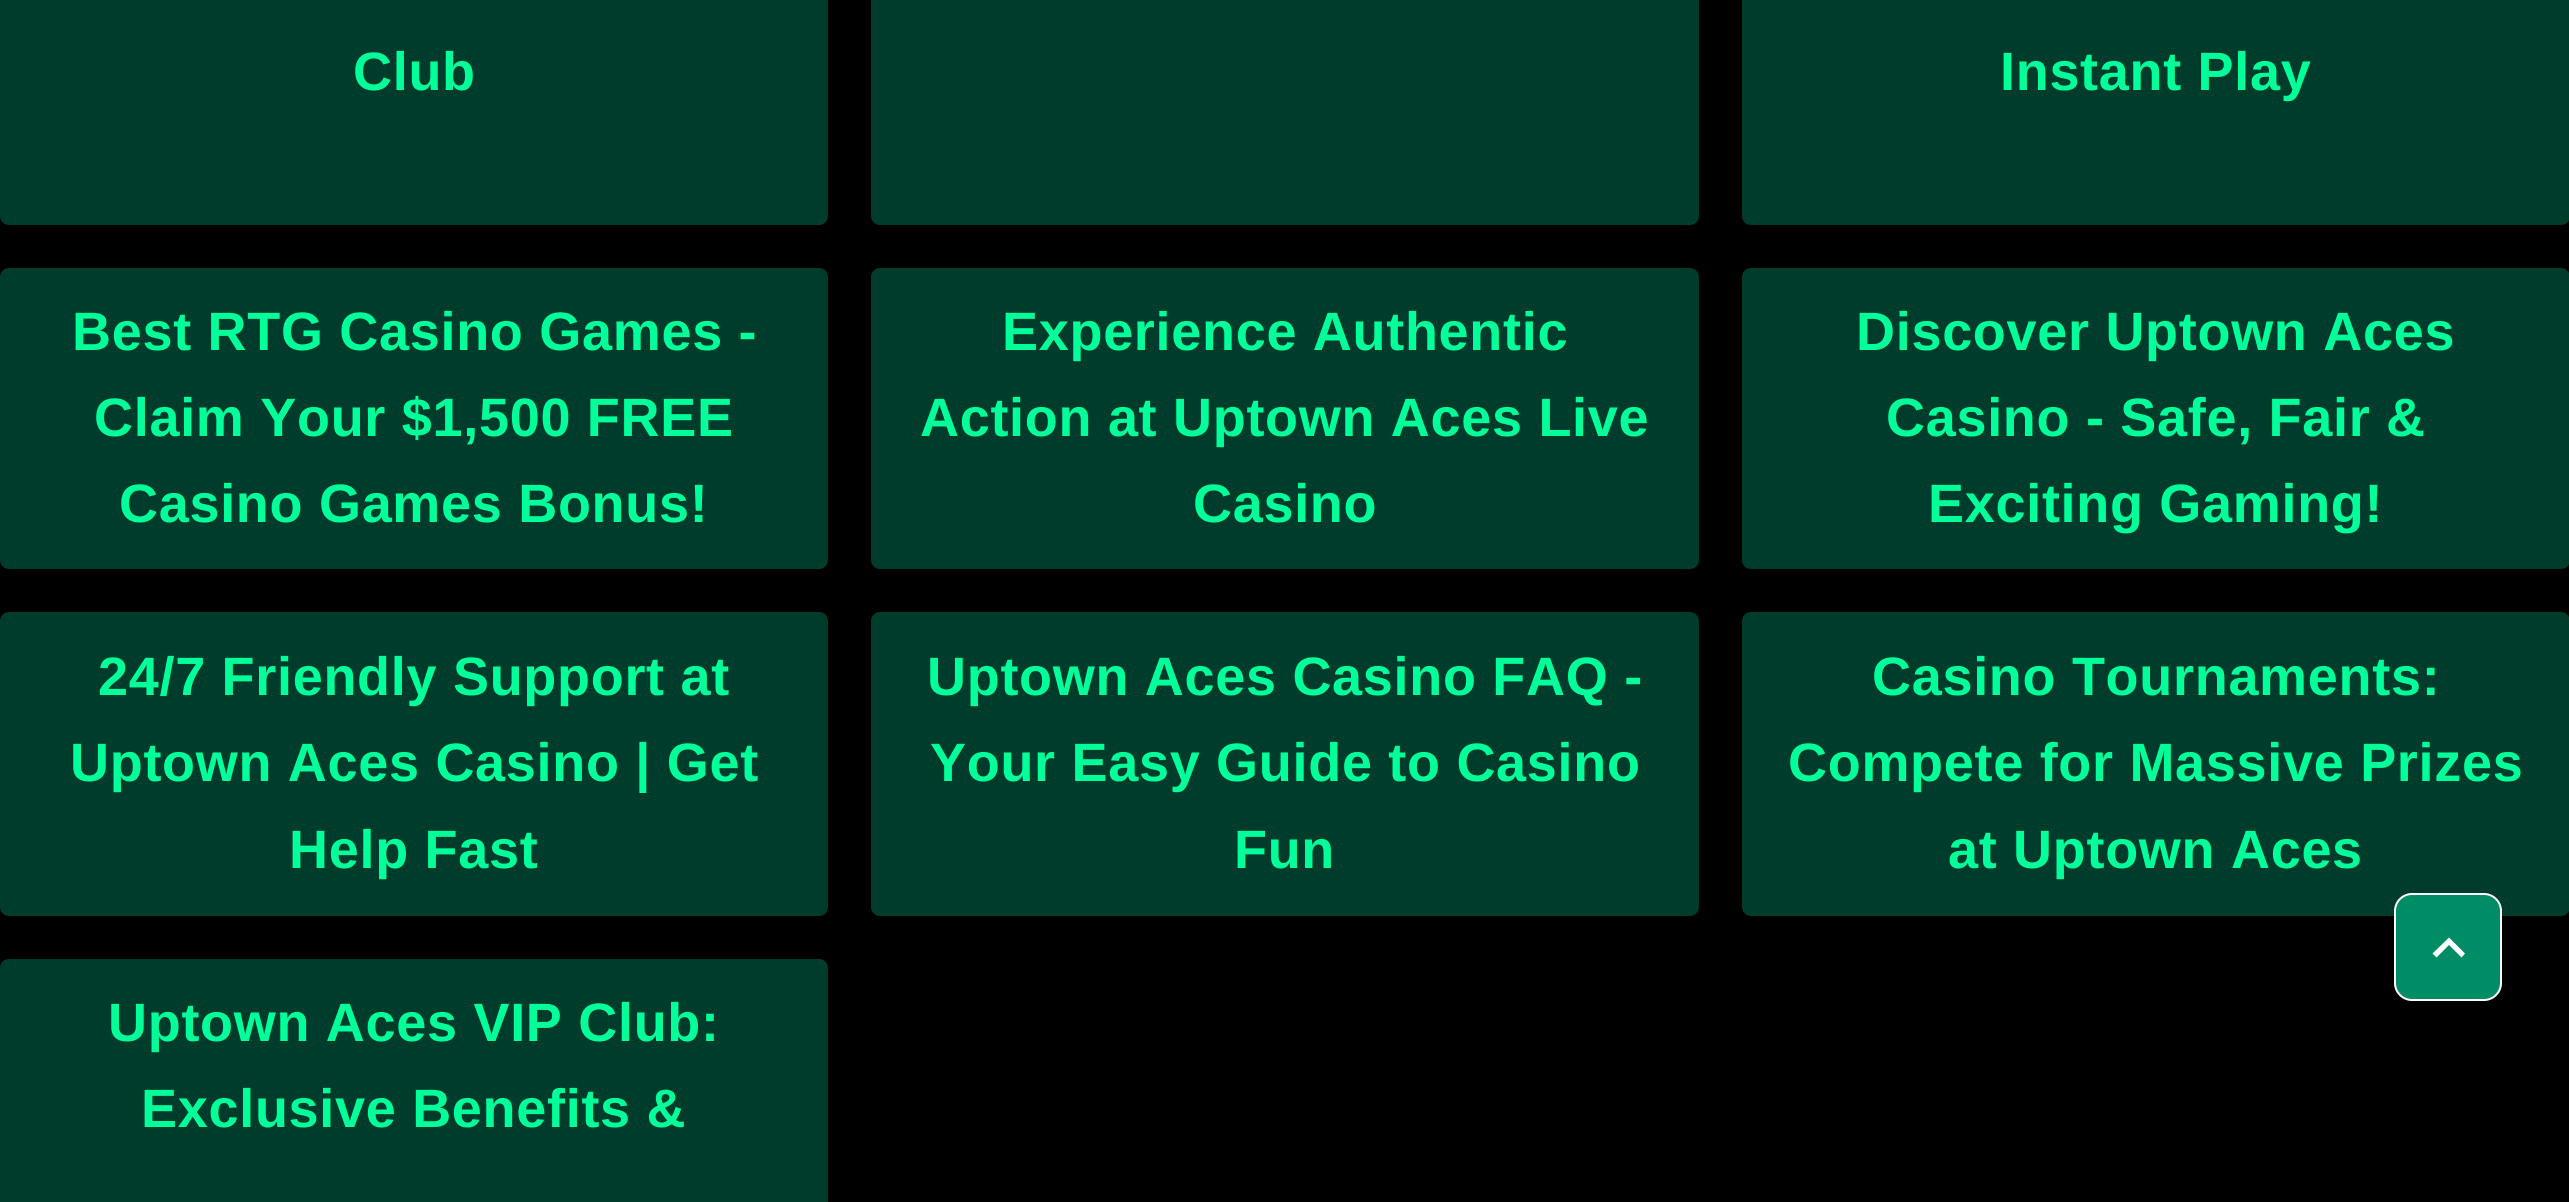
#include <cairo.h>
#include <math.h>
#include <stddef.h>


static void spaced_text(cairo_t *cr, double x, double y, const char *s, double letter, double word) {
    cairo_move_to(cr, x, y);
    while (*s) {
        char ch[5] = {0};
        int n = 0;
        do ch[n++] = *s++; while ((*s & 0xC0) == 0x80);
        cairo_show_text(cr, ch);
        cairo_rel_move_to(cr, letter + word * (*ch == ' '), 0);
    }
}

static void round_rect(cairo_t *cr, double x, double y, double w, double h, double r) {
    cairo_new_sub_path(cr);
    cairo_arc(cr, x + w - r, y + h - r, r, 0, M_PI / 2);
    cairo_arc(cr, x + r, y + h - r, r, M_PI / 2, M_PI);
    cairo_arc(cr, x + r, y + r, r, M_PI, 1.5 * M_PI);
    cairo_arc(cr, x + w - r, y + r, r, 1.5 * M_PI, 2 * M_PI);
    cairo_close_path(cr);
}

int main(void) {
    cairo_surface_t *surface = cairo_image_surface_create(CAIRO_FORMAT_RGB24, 2569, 1202);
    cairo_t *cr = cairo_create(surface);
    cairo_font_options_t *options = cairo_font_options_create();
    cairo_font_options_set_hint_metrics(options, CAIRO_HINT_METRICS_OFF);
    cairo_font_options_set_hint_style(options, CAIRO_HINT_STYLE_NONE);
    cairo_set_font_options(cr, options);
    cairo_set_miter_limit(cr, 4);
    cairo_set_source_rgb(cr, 0, 0, 0);
    cairo_paint(cr);
    cairo_set_source_rgb(cr, 0, 0.235, 0.173);
    round_rect(cr, 0, -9, 828, 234, 9);
    cairo_fill(cr);
    cairo_select_font_face(cr, "Liberation Sans", CAIRO_FONT_SLANT_NORMAL, CAIRO_FONT_WEIGHT_BOLD);
    cairo_set_font_size(cr, 54);
    cairo_set_source_rgb(cr, 0.008, 1, 0.6);
    spaced_text(cr, 353, 90, "Club", 0.7, 0);
    cairo_set_source_rgb(cr, 0, 0.235, 0.173);
    round_rect(cr, 871, -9, 828, 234, 9);
    cairo_fill(cr);
    round_rect(cr, 1742, -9, 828, 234, 9);
    cairo_fill(cr);
    cairo_set_source_rgb(cr, 0.008, 1, 0.6);
    spaced_text(cr, 2000, 90, "Instant Play", 0.7, 0);
    cairo_set_source_rgb(cr, 0, 0.235, 0.173);
    round_rect(cr, 0, 268, 828, 301, 9);
    cairo_fill(cr);
    cairo_set_source_rgb(cr, 0.008, 1, 0.6);
    spaced_text(cr, 72, 350, "Best RTG Casino Games -", 0.7, 0);
    spaced_text(cr, 94, 436, "Claim Your $1,500 FREE", 0.7, 0);
    spaced_text(cr, 119, 522, "Casino Games Bonus!", 0.7, 0);
    cairo_set_source_rgb(cr, 0, 0.235, 0.173);
    round_rect(cr, 871, 268, 828, 301, 9);
    cairo_fill(cr);
    cairo_set_source_rgb(cr, 0.008, 1, 0.6);
    spaced_text(cr, 1002, 350, "Experience Authentic", 0.7, 0);
    spaced_text(cr, 920, 436, "Action at Uptown Aces Live", 0.7, 0);
    spaced_text(cr, 1193, 522, "Casino", 0.7, 0);
    cairo_set_source_rgb(cr, 0, 0.235, 0.173);
    round_rect(cr, 1742, 268, 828, 301, 9);
    cairo_fill(cr);
    cairo_set_source_rgb(cr, 0.008, 1, 0.6);
    spaced_text(cr, 1856, 350, "Discover Uptown Aces", 0.7, 0);
    spaced_text(cr, 1886, 436, "Casino - Safe, Fair &", 0.7, 0);
    spaced_text(cr, 1928, 522, "Exciting Gaming!", 0.7, 0);
    cairo_set_source_rgb(cr, 0, 0.235, 0.173);
    round_rect(cr, 0, 612, 828, 304, 9);
    cairo_fill(cr);
    cairo_set_source_rgb(cr, 0.008, 1, 0.6);
    spaced_text(cr, 98, 695, "24/7 Friendly Support at", 0.7, 0);
    spaced_text(cr, 70, 781, "Uptown Aces Casino | Get", 0.7, 0);
    spaced_text(cr, 289, 868, "Help Fast", 0.7, 0);
    cairo_set_source_rgb(cr, 0, 0.235, 0.173);
    round_rect(cr, 871, 612, 828, 304, 9);
    cairo_fill(cr);
    cairo_set_source_rgb(cr, 0.008, 1, 0.6);
    spaced_text(cr, 927, 695, "Uptown Aces Casino FAQ -", 0.7, 0);
    spaced_text(cr, 930, 781, "Your Easy Guide to Casino", 0.7, 0);
    spaced_text(cr, 1234, 868, "Fun", 0.7, 0);
    cairo_set_source_rgb(cr, 0, 0.235, 0.173);
    round_rect(cr, 1742, 612, 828, 304, 9);
    cairo_fill(cr);
    cairo_set_source_rgb(cr, 0.008, 1, 0.6);
    spaced_text(cr, 1872, 695, "Casino Tournaments:", 0.7, 0);
    spaced_text(cr, 1788, 781, "Compete for Massive Prizes", 0.7, 0);
    spaced_text(cr, 1948, 868, "at Uptown Aces", 0.7, 0);
    cairo_set_source_rgb(cr, 0, 0.235, 0.173);
    round_rect(cr, 0, 959, 828, 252, 9);
    cairo_fill(cr);
    cairo_set_source_rgb(cr, 0.008, 1, 0.6);
    spaced_text(cr, 108, 1041, "Uptown Aces VIP Club:", 0.7, 0);
    spaced_text(cr, 141, 1127, "Exclusive Benefits &", 0.7, 0);
    cairo_set_source_rgb(cr, 0, 0.549, 0.392);
    round_rect(cr, 2395, 894, 106, 106, 17);
    cairo_fill_preserve(cr);
    cairo_set_source_rgb(cr, 1, 1, 1);
    cairo_stroke(cr);
    cairo_new_path(cr);
    cairo_move_to(cr, 2436.5, 957.5);
    cairo_line_to(cr, 2449, 945);
    cairo_line_to(cr, 2461.5, 957.5);
    cairo_line_to(cr, 2465, 953.5);
    cairo_line_to(cr, 2449, 937.5);
    cairo_line_to(cr, 2432.5, 953.5);
    cairo_close_path(cr);
    cairo_fill(cr);
    cairo_surface_write_to_png(surface, "page.png");
    cairo_font_options_destroy(options);
    cairo_destroy(cr);
    cairo_surface_destroy(surface);
    return 0;
}
